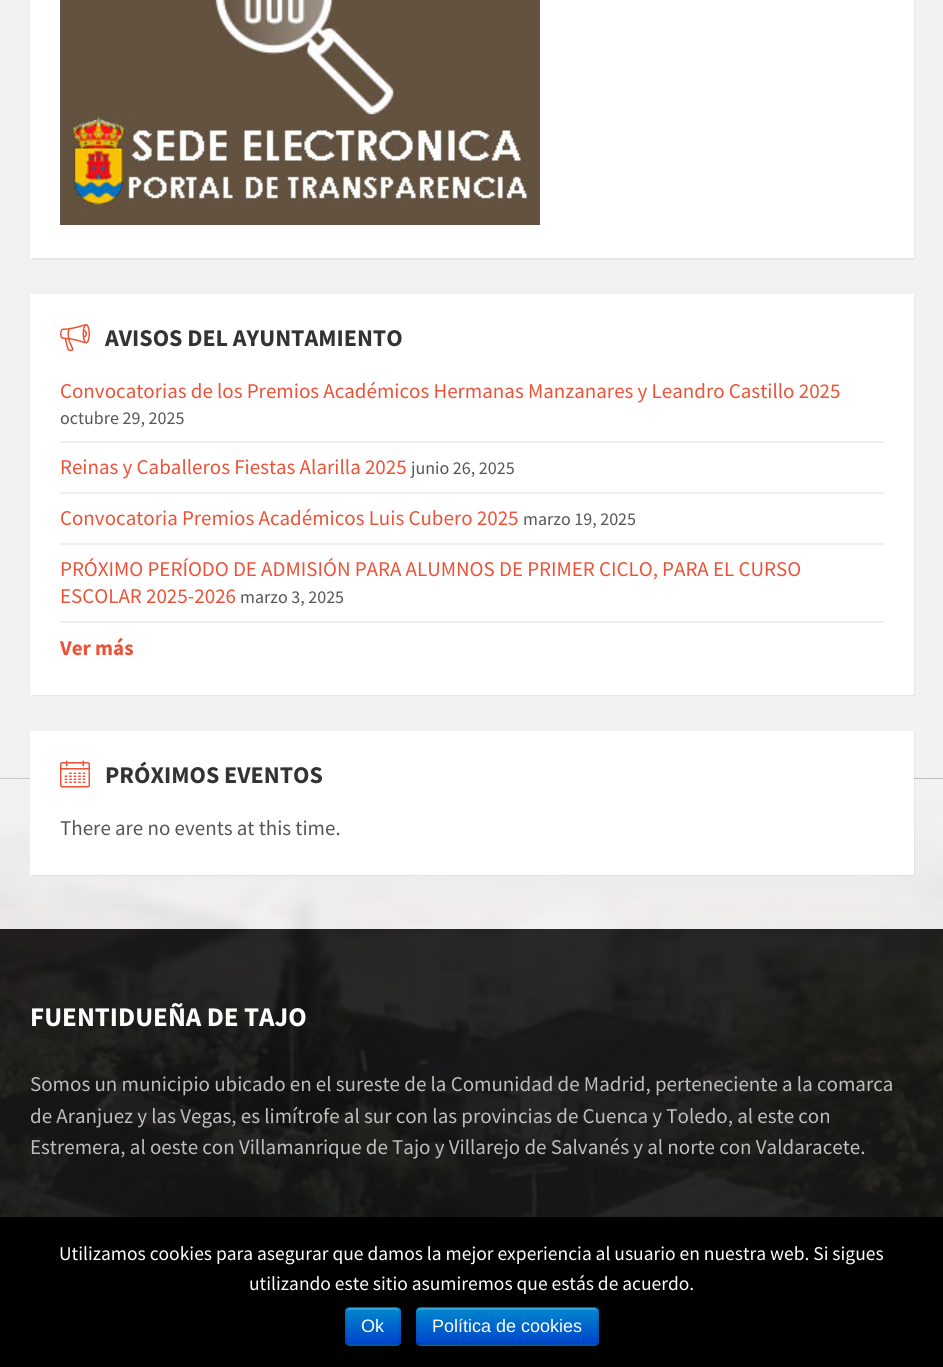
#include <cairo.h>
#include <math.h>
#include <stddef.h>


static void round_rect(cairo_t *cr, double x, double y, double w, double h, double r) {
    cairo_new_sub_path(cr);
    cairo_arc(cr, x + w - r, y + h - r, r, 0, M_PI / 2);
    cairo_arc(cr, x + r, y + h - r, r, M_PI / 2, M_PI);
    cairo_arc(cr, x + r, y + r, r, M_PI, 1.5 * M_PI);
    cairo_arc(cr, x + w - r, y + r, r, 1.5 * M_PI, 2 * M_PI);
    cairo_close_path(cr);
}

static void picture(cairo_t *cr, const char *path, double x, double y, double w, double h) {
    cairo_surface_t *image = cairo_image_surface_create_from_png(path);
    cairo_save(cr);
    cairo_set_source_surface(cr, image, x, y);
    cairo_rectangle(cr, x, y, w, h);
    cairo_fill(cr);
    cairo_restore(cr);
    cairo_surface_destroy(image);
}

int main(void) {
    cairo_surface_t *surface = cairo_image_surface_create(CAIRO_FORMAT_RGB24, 943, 1367);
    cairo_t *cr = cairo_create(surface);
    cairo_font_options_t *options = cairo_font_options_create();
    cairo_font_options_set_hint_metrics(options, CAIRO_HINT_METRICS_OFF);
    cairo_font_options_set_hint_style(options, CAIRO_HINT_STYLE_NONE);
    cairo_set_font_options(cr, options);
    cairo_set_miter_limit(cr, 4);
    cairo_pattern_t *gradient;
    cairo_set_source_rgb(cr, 0.949, 0.949, 0.949);
    cairo_paint(cr);
    cairo_set_source_rgb(cr, 0.902, 0.902, 0.902);
    cairo_new_path(cr);
    cairo_move_to(cr, 32, 258);
    cairo_line_to(cr, 32, 260);
    cairo_line_to(cr, 915, 260);
    cairo_line_to(cr, 915, -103);
    cairo_line_to(cr, 914, -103);
    cairo_line_to(cr, 914, 258);
    cairo_close_path(cr);
    cairo_fill(cr);
    cairo_set_source_rgb(cr, 1, 1, 1);
    cairo_rectangle(cr, 30, 0, 884, 258);
    cairo_fill(cr);
    picture(cr, "img1.png", 60, 0, 480, 225);
    cairo_set_source_rgb(cr, 0.902, 0.902, 0.902);
    cairo_new_path(cr);
    cairo_move_to(cr, 32, 694);
    cairo_line_to(cr, 32, 696);
    cairo_line_to(cr, 915, 696);
    cairo_line_to(cr, 915, 296);
    cairo_line_to(cr, 914, 296);
    cairo_line_to(cr, 914, 694);
    cairo_close_path(cr);
    cairo_fill(cr);
    cairo_set_source_rgb(cr, 1, 1, 1);
    cairo_rectangle(cr, 30, 294, 884, 401);
    cairo_fill(cr);
    picture(cr, "img2.png", 60, 324, 30, 27);
    cairo_select_font_face(cr, "Source Sans Pro", CAIRO_FONT_SLANT_NORMAL, CAIRO_FONT_WEIGHT_BOLD);
    cairo_set_font_size(cr, 24);
    cairo_set_source_rgb(cr, 0.2, 0.2, 0.2);
    cairo_move_to(cr, 105, 346);
    cairo_show_text(cr, "AVISOS DEL AYUNTAMIENTO");
    cairo_select_font_face(cr, "Source Sans Pro", CAIRO_FONT_SLANT_NORMAL, CAIRO_FONT_WEIGHT_NORMAL);
    cairo_set_font_size(cr, 21);
    cairo_set_source_rgb(cr, 0.925, 0.322, 0.216);
    cairo_move_to(cr, 60, 398);
    cairo_show_text(cr, "Convocatorias de los Premios Académicos Hermanas Manzanares y Leandro Castillo 2025");
    cairo_set_font_size(cr, 18);
    cairo_set_source_rgb(cr, 0.337, 0.337, 0.337);
    cairo_move_to(cr, 60, 424);
    cairo_show_text(cr, "octubre 29, 2025");
    cairo_set_source_rgb(cr, 0.941, 0.941, 0.941);
    cairo_rectangle(cr, 60, 441, 824, 2);
    cairo_fill(cr);
    cairo_set_font_size(cr, 21);
    cairo_set_source_rgb(cr, 0.925, 0.322, 0.216);
    cairo_move_to(cr, 60, 474);
    cairo_show_text(cr, "Reinas y Caballeros Fiestas Alarilla 2025");
    cairo_set_font_size(cr, 18);
    cairo_set_source_rgb(cr, 0.337, 0.337, 0.337);
    cairo_move_to(cr, 411, 474);
    cairo_show_text(cr, "junio 26, 2025");
    cairo_set_source_rgb(cr, 0.941, 0.941, 0.941);
    cairo_rectangle(cr, 60, 492, 824, 2);
    cairo_fill(cr);
    cairo_set_font_size(cr, 21);
    cairo_set_source_rgb(cr, 0.925, 0.322, 0.216);
    cairo_move_to(cr, 60, 525);
    cairo_show_text(cr, "Convocatoria Premios Académicos Luis Cubero 2025");
    cairo_set_font_size(cr, 18);
    cairo_set_source_rgb(cr, 0.337, 0.337, 0.337);
    cairo_move_to(cr, 523, 525);
    cairo_show_text(cr, "marzo 19, 2025");
    cairo_set_source_rgb(cr, 0.941, 0.941, 0.941);
    cairo_rectangle(cr, 60, 543, 824, 2);
    cairo_fill(cr);
    cairo_set_font_size(cr, 21);
    cairo_set_source_rgb(cr, 0.925, 0.322, 0.216);
    cairo_move_to(cr, 60, 576);
    cairo_show_text(cr, "PRÓXIMO PERÍODO DE ADMISIÓN PARA ALUMNOS DE PRIMER CICLO, PARA EL CURSO");
    cairo_move_to(cr, 60, 603);
    cairo_show_text(cr, "ESCOLAR 2025-2026");
    cairo_set_font_size(cr, 18);
    cairo_set_source_rgb(cr, 0.337, 0.337, 0.337);
    cairo_move_to(cr, 240, 603);
    cairo_show_text(cr, "marzo 3, 2025");
    cairo_set_source_rgb(cr, 0.941, 0.941, 0.941);
    cairo_rectangle(cr, 60, 621, 824, 2);
    cairo_fill(cr);
    cairo_select_font_face(cr, "Source Sans Pro", CAIRO_FONT_SLANT_NORMAL, CAIRO_FONT_WEIGHT_BOLD);
    cairo_set_font_size(cr, 21);
    cairo_set_source_rgb(cr, 0.925, 0.322, 0.216);
    cairo_move_to(cr, 60, 655);
    cairo_show_text(cr, "Ver más");
    picture(cr, "img4.png", 0, 778, 943, 439);
    cairo_set_source_rgba(cr, 0.949, 0.949, 0.949, 0.9);
    cairo_rectangle(cr, 0, 780, 943, 149);
    cairo_fill(cr);
    gradient = cairo_pattern_create_linear(472, 779, 472, 929);
    cairo_pattern_add_color_stop_rgba(gradient, 0, 0.949, 0.949, 0.949, 1);
    cairo_pattern_add_color_stop_rgba(gradient, 1, 0.949, 0.949, 0.949, 0);
    cairo_set_source(cr, gradient);
    cairo_pattern_destroy(gradient);
    cairo_rectangle(cr, 0, 779, 943, 125);
    cairo_fill(cr);
    cairo_set_source_rgba(cr, 0, 0, 0, 0.05);
    cairo_new_path(cr);
    cairo_move_to(cr, 32, 874);
    cairo_line_to(cr, 32, 876);
    cairo_line_to(cr, 915, 876);
    cairo_line_to(cr, 915, 732);
    cairo_line_to(cr, 914, 732);
    cairo_line_to(cr, 914, 874);
    cairo_close_path(cr);
    cairo_fill(cr);
    cairo_set_source_rgb(cr, 1, 1, 1);
    cairo_rectangle(cr, 30, 731, 884, 144);
    cairo_fill(cr);
    picture(cr, "img3.png", 60, 760, 30, 28);
    cairo_set_font_size(cr, 24);
    cairo_set_source_rgb(cr, 0.2, 0.2, 0.2);
    cairo_move_to(cr, 105, 783);
    cairo_show_text(cr, "PRÓXIMOS EVENTOS");
    cairo_select_font_face(cr, "Source Sans Pro", CAIRO_FONT_SLANT_NORMAL, CAIRO_FONT_WEIGHT_NORMAL);
    cairo_set_font_size(cr, 21);
    cairo_set_source_rgb(cr, 0.337, 0.337, 0.337);
    cairo_move_to(cr, 60, 835);
    cairo_show_text(cr, "There are no events at this time.");
    cairo_set_source_rgba(cr, 0.067, 0.067, 0.067, 0.9);
    cairo_rectangle(cr, 0, 929, 943, 288);
    cairo_fill(cr);
    cairo_select_font_face(cr, "Source Sans Pro", CAIRO_FONT_SLANT_NORMAL, CAIRO_FONT_WEIGHT_BOLD);
    cairo_set_font_size(cr, 27);
    cairo_set_source_rgb(cr, 1, 1, 1);
    cairo_move_to(cr, 30, 1026);
    cairo_show_text(cr, "FUENTIDUEÑA DE TAJO");
    cairo_select_font_face(cr, "Source Sans Pro", CAIRO_FONT_SLANT_NORMAL, CAIRO_FONT_WEIGHT_NORMAL);
    cairo_set_font_size(cr, 21);
    cairo_set_source_rgb(cr, 0.745, 0.745, 0.745);
    cairo_move_to(cr, 30, 1091);
    cairo_show_text(cr, "Somos un municipio ubicado en el sureste de la Comunidad de Madrid, perteneciente a la comarca");
    cairo_move_to(cr, 30, 1123);
    cairo_show_text(cr, "de Aranjuez y las Vegas, es limítrofe al sur con las provincias de Cuenca y Toledo, al este con");
    cairo_move_to(cr, 30, 1154);
    cairo_show_text(cr, "Estremera, al oeste con Villamanrique de Tajo y Villarejo de Salvanés y al norte con Valdaracete.");
    cairo_set_source_rgb(cr, 0, 0, 0);
    cairo_rectangle(cr, 0, 1217, 943, 150);
    cairo_fill(cr);
    cairo_set_font_size(cr, 19.5);
    cairo_set_source_rgb(cr, 1, 1, 1);
    cairo_move_to(cr, 59, 1260);
    cairo_show_text(cr, "Utilizamos cookies para asegurar que damos la mejor experiencia al usuario en nuestra web. Si sigues");
    cairo_move_to(cr, 249, 1290);
    cairo_show_text(cr, "utilizando este sitio asumiremos que estás de acuerdo.");
    cairo_set_source_rgb(cr, 0, 0.427, 0.8);
    round_rect(cr, 345, 1307, 56, 39, 5);
    cairo_fill(cr);
    cairo_save(cr);
    round_rect(cr, 345, 1307, 56, 39, 5);
    cairo_clip(cr);
    gradient = cairo_pattern_create_linear(373, 1308, 373, 1344);
    cairo_pattern_add_color_stop_rgba(gradient, 0, 0, 0.533, 0.8, 1);
    cairo_pattern_add_color_stop_rgba(gradient, 1, 0, 0.267, 0.8, 1);
    cairo_set_source(cr, gradient);
    cairo_pattern_destroy(gradient);
    cairo_rectangle(cr, 345, 1308, 56, 36);
    cairo_fill(cr);
    cairo_restore(cr);
    cairo_set_source_rgba(cr, 1, 1, 1, 0.2);
    cairo_new_path(cr);
    cairo_move_to(cr, 350, 1310);
    cairo_line_to(cr, 396, 1310);
    cairo_curve_to(cr, 398, 1310, 399, 1311, 399, 1312);
    cairo_line_to(cr, 399, 1311);
    cairo_curve_to(cr, 399, 1309, 398, 1308, 396, 1308);
    cairo_line_to(cr, 350, 1308);
    cairo_curve_to(cr, 348, 1308, 347, 1309, 347, 1311);
    cairo_close_path(cr);
    cairo_fill(cr);
    cairo_new_path(cr);
    cairo_move_to(cr, 398.5, 1343.5);
    cairo_curve_to(cr, 398, 1344.5, 397, 1345, 396, 1345);
    cairo_line_to(cr, 349.5, 1345);
    cairo_curve_to(cr, 348.5, 1345, 347.5, 1344.5, 347, 1343.5);
    cairo_set_source_rgba(cr, 0, 0, 0, 0.25);
    cairo_set_line_width(cr, 1.5);
    cairo_stroke(cr);
    cairo_new_path(cr);
    cairo_move_to(cr, 347, 1343.5);
    cairo_curve_to(cr, 346, 1343, 346, 1342, 346, 1341);
    cairo_line_to(cr, 346, 1311);
    cairo_curve_to(cr, 346, 1310, 346, 1309, 347, 1308.5);
    cairo_curve_to(cr, 347.5, 1307.5, 348.5, 1307, 349.5, 1307);
    cairo_line_to(cr, 396, 1307);
    cairo_curve_to(cr, 397, 1307, 398, 1307.5, 398.5, 1308.5);
    cairo_curve_to(cr, 399.5, 1309, 400, 1310, 400, 1311);
    cairo_line_to(cr, 400, 1341);
    cairo_curve_to(cr, 400, 1342, 399.5, 1343, 398.5, 1343.5);
    cairo_set_source_rgba(cr, 0, 0, 0, 0.1);
    cairo_stroke(cr);
    cairo_select_font_face(cr, "Liberation Sans", CAIRO_FONT_SLANT_NORMAL, CAIRO_FONT_WEIGHT_NORMAL);
    cairo_set_font_size(cr, 18);
    cairo_set_source_rgb(cr, 1, 1, 1);
    cairo_move_to(cr, 361, 1332);
    cairo_show_text(cr, "Ok");
    cairo_set_source_rgb(cr, 0, 0.427, 0.8);
    round_rect(cr, 416, 1307, 183, 39, 5);
    cairo_fill(cr);
    cairo_save(cr);
    round_rect(cr, 416, 1307, 183, 39, 5);
    cairo_clip(cr);
    gradient = cairo_pattern_create_linear(507, 1308, 507, 1344);
    cairo_pattern_add_color_stop_rgba(gradient, 0, 0, 0.533, 0.8, 1);
    cairo_pattern_add_color_stop_rgba(gradient, 1, 0, 0.267, 0.8, 1);
    cairo_set_source(cr, gradient);
    cairo_pattern_destroy(gradient);
    cairo_rectangle(cr, 416, 1308, 183, 36);
    cairo_fill(cr);
    cairo_restore(cr);
    cairo_set_source_rgba(cr, 1, 1, 1, 0.2);
    cairo_new_path(cr);
    cairo_move_to(cr, 420, 1310);
    cairo_line_to(cr, 594, 1310);
    cairo_curve_to(cr, 596, 1310, 597, 1311, 597, 1312);
    cairo_line_to(cr, 597, 1311);
    cairo_curve_to(cr, 597, 1309, 596, 1308, 594, 1308);
    cairo_line_to(cr, 420, 1308);
    cairo_curve_to(cr, 418, 1308, 417, 1309, 417, 1311);
    cairo_line_to(cr, 417, 1312);
    cairo_curve_to(cr, 417, 1311, 418, 1310, 420, 1310);
    cairo_close_path(cr);
    cairo_fill(cr);
    cairo_new_path(cr);
    cairo_move_to(cr, 596.5, 1343.5);
    cairo_line_to(cr, 594, 1345);
    cairo_line_to(cr, 419.5, 1344.5);
    cairo_line_to(cr, 417.5, 1343.5);
    cairo_set_source_rgba(cr, 0, 0, 0, 0.25);
    cairo_stroke(cr);
    cairo_new_path(cr);
    cairo_move_to(cr, 417.5, 1343.5);
    cairo_curve_to(cr, 416.5, 1343, 416, 1342, 416, 1341);
    cairo_line_to(cr, 416, 1311);
    cairo_curve_to(cr, 416, 1310, 416.5, 1309, 417.5, 1308.5);
    cairo_curve_to(cr, 418, 1307.5, 419, 1307, 420, 1307);
    cairo_line_to(cr, 594, 1307);
    cairo_curve_to(cr, 595, 1307, 596, 1307.5, 596.5, 1308.5);
    cairo_curve_to(cr, 597.5, 1309, 598, 1310, 598, 1311);
    cairo_line_to(cr, 598, 1341);
    cairo_curve_to(cr, 598, 1342, 597.5, 1343, 596.5, 1343.5);
    cairo_set_source_rgba(cr, 0, 0, 0, 0.1);
    cairo_stroke(cr);
    cairo_set_source_rgb(cr, 1, 1, 1);
    cairo_move_to(cr, 432, 1332);
    cairo_show_text(cr, "Política de cookies");
    cairo_surface_write_to_png(surface, "page.png");
    cairo_font_options_destroy(options);
    cairo_destroy(cr);
    cairo_surface_destroy(surface);
    return 0;
}
